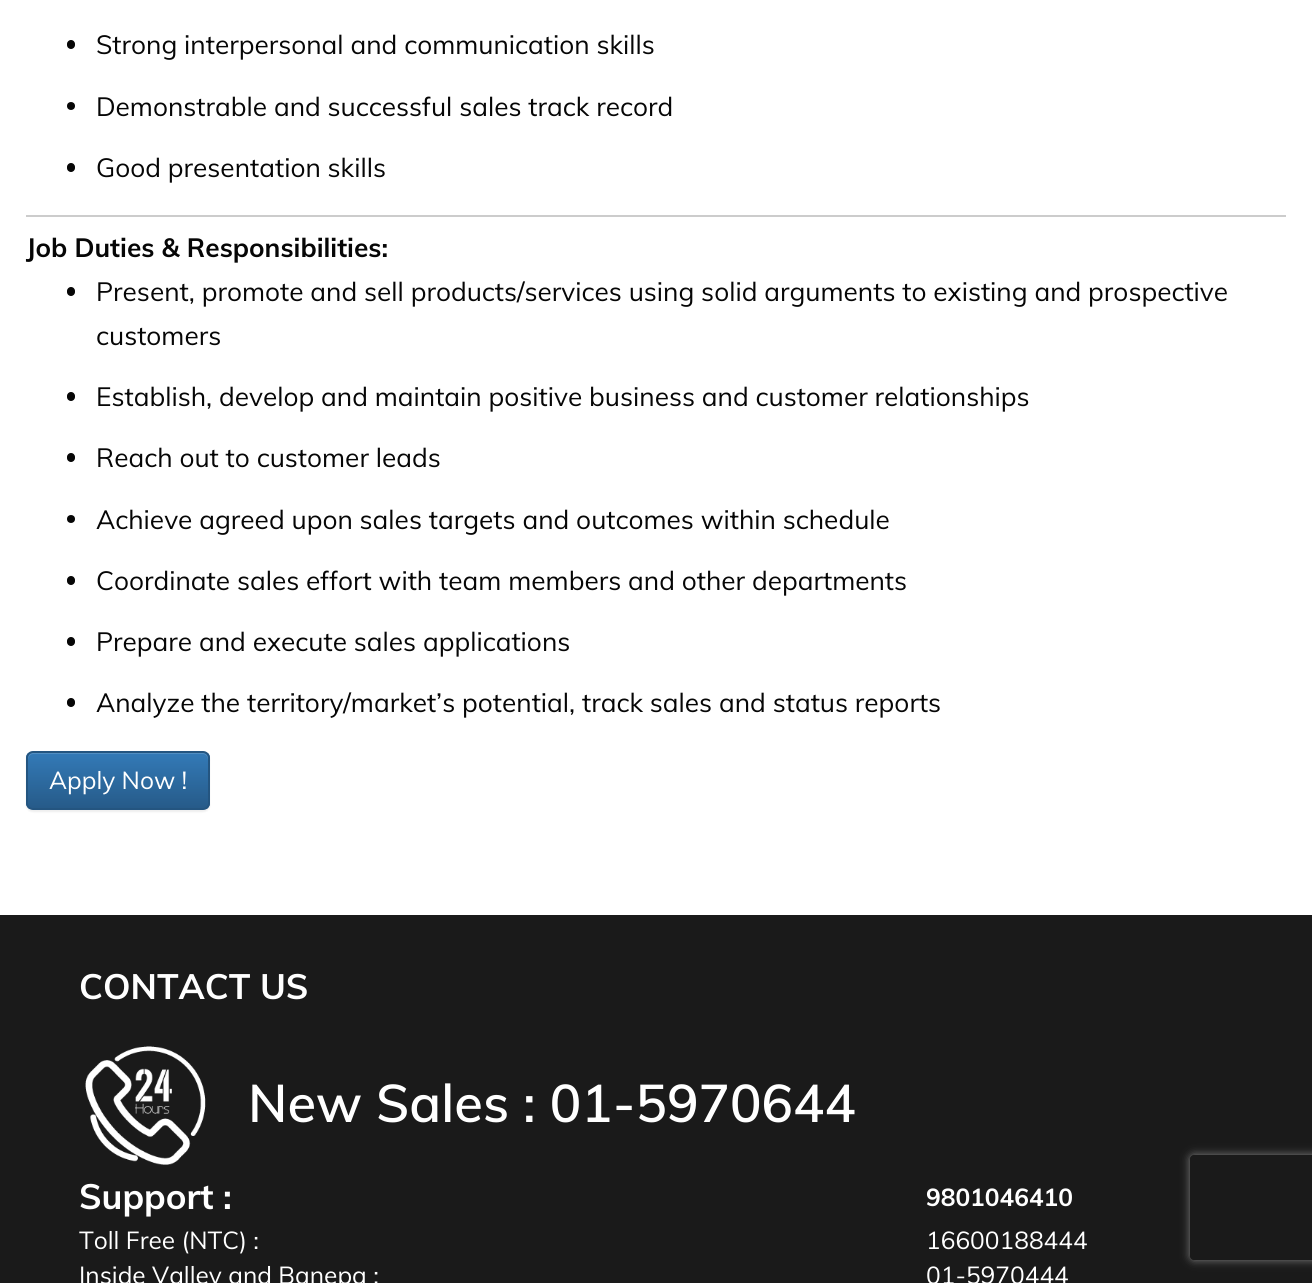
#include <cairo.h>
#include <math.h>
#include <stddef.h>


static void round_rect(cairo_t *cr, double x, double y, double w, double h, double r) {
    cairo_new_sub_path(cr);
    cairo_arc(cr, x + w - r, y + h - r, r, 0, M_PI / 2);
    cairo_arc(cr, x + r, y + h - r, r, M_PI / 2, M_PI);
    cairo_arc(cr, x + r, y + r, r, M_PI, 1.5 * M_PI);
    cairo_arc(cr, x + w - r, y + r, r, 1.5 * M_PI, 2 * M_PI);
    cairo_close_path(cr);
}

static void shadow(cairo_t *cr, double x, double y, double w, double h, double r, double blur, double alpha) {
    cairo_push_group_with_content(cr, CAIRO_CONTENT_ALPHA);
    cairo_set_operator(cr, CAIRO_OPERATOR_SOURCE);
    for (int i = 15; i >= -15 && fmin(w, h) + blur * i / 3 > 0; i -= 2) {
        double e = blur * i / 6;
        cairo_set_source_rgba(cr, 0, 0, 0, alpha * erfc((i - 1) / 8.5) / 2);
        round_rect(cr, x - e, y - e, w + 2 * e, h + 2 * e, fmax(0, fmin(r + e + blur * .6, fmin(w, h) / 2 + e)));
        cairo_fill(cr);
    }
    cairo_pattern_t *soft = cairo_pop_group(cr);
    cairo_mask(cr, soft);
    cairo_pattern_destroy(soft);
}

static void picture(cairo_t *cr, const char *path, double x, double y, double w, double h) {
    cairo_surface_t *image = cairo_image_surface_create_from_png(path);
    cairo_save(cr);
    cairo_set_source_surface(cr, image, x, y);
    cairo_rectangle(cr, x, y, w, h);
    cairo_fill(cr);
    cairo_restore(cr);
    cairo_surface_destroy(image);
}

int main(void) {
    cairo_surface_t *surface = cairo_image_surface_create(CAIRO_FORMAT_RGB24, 1312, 1283);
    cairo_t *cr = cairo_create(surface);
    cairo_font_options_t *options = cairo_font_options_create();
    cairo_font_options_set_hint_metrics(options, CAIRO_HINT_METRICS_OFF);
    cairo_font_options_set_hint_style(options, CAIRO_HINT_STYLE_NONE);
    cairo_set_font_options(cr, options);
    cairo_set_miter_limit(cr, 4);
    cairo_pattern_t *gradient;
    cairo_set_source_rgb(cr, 1, 1, 1);
    cairo_paint(cr);
    cairo_set_source_rgb(cr, 0.8, 0.8, 0.8);
    cairo_rectangle(cr, 26, 215, 1260, 2);
    cairo_fill(cr);
    cairo_set_source_rgb(cr, 0.027, 0.027, 0.027);
    round_rect(cr, 67, 40, 8, 9, 4);
    cairo_fill(cr);
    cairo_select_font_face(cr, "Muli", CAIRO_FONT_SLANT_NORMAL, CAIRO_FONT_WEIGHT_NORMAL);
    cairo_set_font_size(cr, 26.25);
    cairo_move_to(cr, 96, 54);
    cairo_show_text(cr, "Strong interpersonal and communication skills");
    cairo_new_path(cr);
    cairo_arc(cr, 71, 106, 4, 0, 2 * M_PI);
    cairo_fill(cr);
    cairo_move_to(cr, 96, 116);
    cairo_show_text(cr, "Demonstrable and successful sales track record");
    round_rect(cr, 67, 163, 8, 9, 4);
    cairo_fill(cr);
    cairo_move_to(cr, 96, 177);
    cairo_show_text(cr, "Good presentation skills");
    cairo_select_font_face(cr, "Muli", CAIRO_FONT_SLANT_NORMAL, CAIRO_FONT_WEIGHT_BOLD);
    cairo_move_to(cr, 26, 257);
    cairo_show_text(cr, "Job Duties & Responsibilities:");
    round_rect(cr, 67, 287, 8, 9, 4);
    cairo_fill(cr);
    cairo_select_font_face(cr, "Muli", CAIRO_FONT_SLANT_NORMAL, CAIRO_FONT_WEIGHT_NORMAL);
    cairo_move_to(cr, 96, 301);
    cairo_show_text(cr, "Present, promote and sell products/services using solid arguments to existing and prospective");
    cairo_move_to(cr, 96, 345);
    cairo_show_text(cr, "customers");
    round_rect(cr, 67, 392, 8, 9, 4);
    cairo_fill(cr);
    cairo_move_to(cr, 96, 406);
    cairo_show_text(cr, "Establish, develop and maintain positive business and customer relationships");
    round_rect(cr, 67, 453, 8, 9, 4);
    cairo_fill(cr);
    cairo_move_to(cr, 96, 467);
    cairo_show_text(cr, "Reach out to customer leads");
    cairo_new_path(cr);
    cairo_arc(cr, 71, 519, 4, 0, 2 * M_PI);
    cairo_fill(cr);
    cairo_move_to(cr, 96, 529);
    cairo_show_text(cr, "Achieve agreed upon sales targets and outcomes within schedule");
    round_rect(cr, 67, 576, 8, 9, 4);
    cairo_fill(cr);
    cairo_move_to(cr, 96, 590);
    cairo_show_text(cr, "Coordinate sales effort with team members and other departments");
    round_rect(cr, 67, 637, 8, 9, 4);
    cairo_fill(cr);
    cairo_move_to(cr, 96, 651);
    cairo_show_text(cr, "Prepare and execute sales applications");
    round_rect(cr, 67, 698, 8, 9, 4);
    cairo_fill(cr);
    cairo_move_to(cr, 96, 712);
    cairo_show_text(cr, "Analyze the territory/market’s potential, track sales and status reports");
    cairo_set_source_rgb(cr, 0, 0, 0);
    shadow(cr, 26, 753, 184, 59, 7, 1, 0.07);
    cairo_save(cr);
    round_rect(cr, 26, 751, 184, 59, 7);
    cairo_clip(cr);
    gradient = cairo_pattern_create_linear(118, 753, 118, 809);
    cairo_pattern_add_color_stop_rgba(gradient, 0, 0.2, 0.478, 0.718, 1);
    cairo_pattern_add_color_stop_rgba(gradient, 1, 0.149, 0.353, 0.533, 1);
    cairo_set_source(cr, gradient);
    cairo_pattern_destroy(gradient);
    cairo_rectangle(cr, 26, 753, 184, 56);
    cairo_fill(cr);
    cairo_restore(cr);
    cairo_set_source_rgba(cr, 1, 1, 1, 0.15);
    cairo_new_path(cr);
    cairo_move_to(cr, 33, 754);
    cairo_line_to(cr, 203, 754);
    cairo_curve_to(cr, 206, 754, 208, 757, 208, 760);
    cairo_line_to(cr, 208, 758);
    cairo_curve_to(cr, 208, 755, 206, 753, 203, 753);
    cairo_line_to(cr, 33, 753);
    cairo_curve_to(cr, 30, 753, 28, 755, 28, 758);
    cairo_line_to(cr, 28, 760);
    cairo_curve_to(cr, 28, 757, 30, 754, 33, 754);
    cairo_close_path(cr);
    cairo_fill(cr);
    round_rect(cr, 27, 752, 182, 57, 6);
    cairo_set_source_rgb(cr, 0.141, 0.333, 0.502);
    cairo_stroke(cr);
    cairo_set_font_size(cr, 24.5);
    cairo_set_source_rgb(cr, 1, 1, 1);
    cairo_move_to(cr, 49, 789);
    cairo_show_text(cr, "Apply Now !");
    cairo_set_source_rgb(cr, 0.102, 0.102, 0.102);
    cairo_rectangle(cr, 0, 915, 1312, 368);
    cairo_fill(cr);
    cairo_select_font_face(cr, "Muli", CAIRO_FONT_SLANT_NORMAL, CAIRO_FONT_WEIGHT_BOLD);
    cairo_set_font_size(cr, 35);
    cairo_set_source_rgb(cr, 1, 1, 1);
    cairo_move_to(cr, 79, 999);
    cairo_show_text(cr, "CONTACT US");
    picture(cr, "img1.png", 85, 1046, 121, 119);
    cairo_select_font_face(cr, "Muli SemiBold", CAIRO_FONT_SLANT_NORMAL, CAIRO_FONT_WEIGHT_NORMAL);
    cairo_set_font_size(cr, 52.5);
    cairo_move_to(cr, 248, 1122);
    cairo_show_text(cr, "New Sales : 01-5970644");
    cairo_select_font_face(cr, "Muli", CAIRO_FONT_SLANT_NORMAL, CAIRO_FONT_WEIGHT_BOLD);
    cairo_set_font_size(cr, 35);
    cairo_move_to(cr, 79, 1209);
    cairo_show_text(cr, "Support :");
    cairo_set_font_size(cr, 24.5);
    cairo_move_to(cr, 926, 1206);
    cairo_show_text(cr, "9801046410");
    cairo_select_font_face(cr, "Muli", CAIRO_FONT_SLANT_NORMAL, CAIRO_FONT_WEIGHT_NORMAL);
    cairo_move_to(cr, 79, 1249);
    cairo_show_text(cr, "Toll Free (NTC) :");
    cairo_move_to(cr, 926, 1249);
    cairo_show_text(cr, "16600188444");
    cairo_move_to(cr, 79, 1284);
    cairo_show_text(cr, "Inside Valley and Banepa :");
    cairo_move_to(cr, 926, 1284);
    cairo_show_text(cr, "01-5970444");
    cairo_save(cr);
    cairo_set_fill_rule(cr, CAIRO_FILL_RULE_EVEN_ODD);
    cairo_new_path(cr);
    cairo_move_to(cr, 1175, 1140);
    cairo_line_to(cr, 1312, 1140);
    cairo_line_to(cr, 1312, 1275);
    cairo_line_to(cr, 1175, 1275);
    cairo_close_path(cr);
    cairo_move_to(cr, 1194, 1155);
    cairo_line_to(cr, 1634, 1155);
    cairo_curve_to(cr, 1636, 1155, 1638, 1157, 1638, 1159);
    cairo_line_to(cr, 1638, 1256);
    cairo_curve_to(cr, 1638, 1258, 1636, 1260, 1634, 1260);
    cairo_line_to(cr, 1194, 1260);
    cairo_curve_to(cr, 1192, 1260, 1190, 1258, 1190, 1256);
    cairo_line_to(cr, 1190, 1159);
    cairo_curve_to(cr, 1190, 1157, 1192, 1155, 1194, 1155);
    cairo_close_path(cr);
    cairo_clip(cr);
    cairo_set_source_rgb(cr, 0.502, 0.502, 0.502);
    shadow(cr, 1190, 1155, 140, 105, 4, 4.5, 1);
    cairo_restore(cr);
    cairo_surface_write_to_png(surface, "page.png");
    cairo_font_options_destroy(options);
    cairo_destroy(cr);
    cairo_surface_destroy(surface);
    return 0;
}
